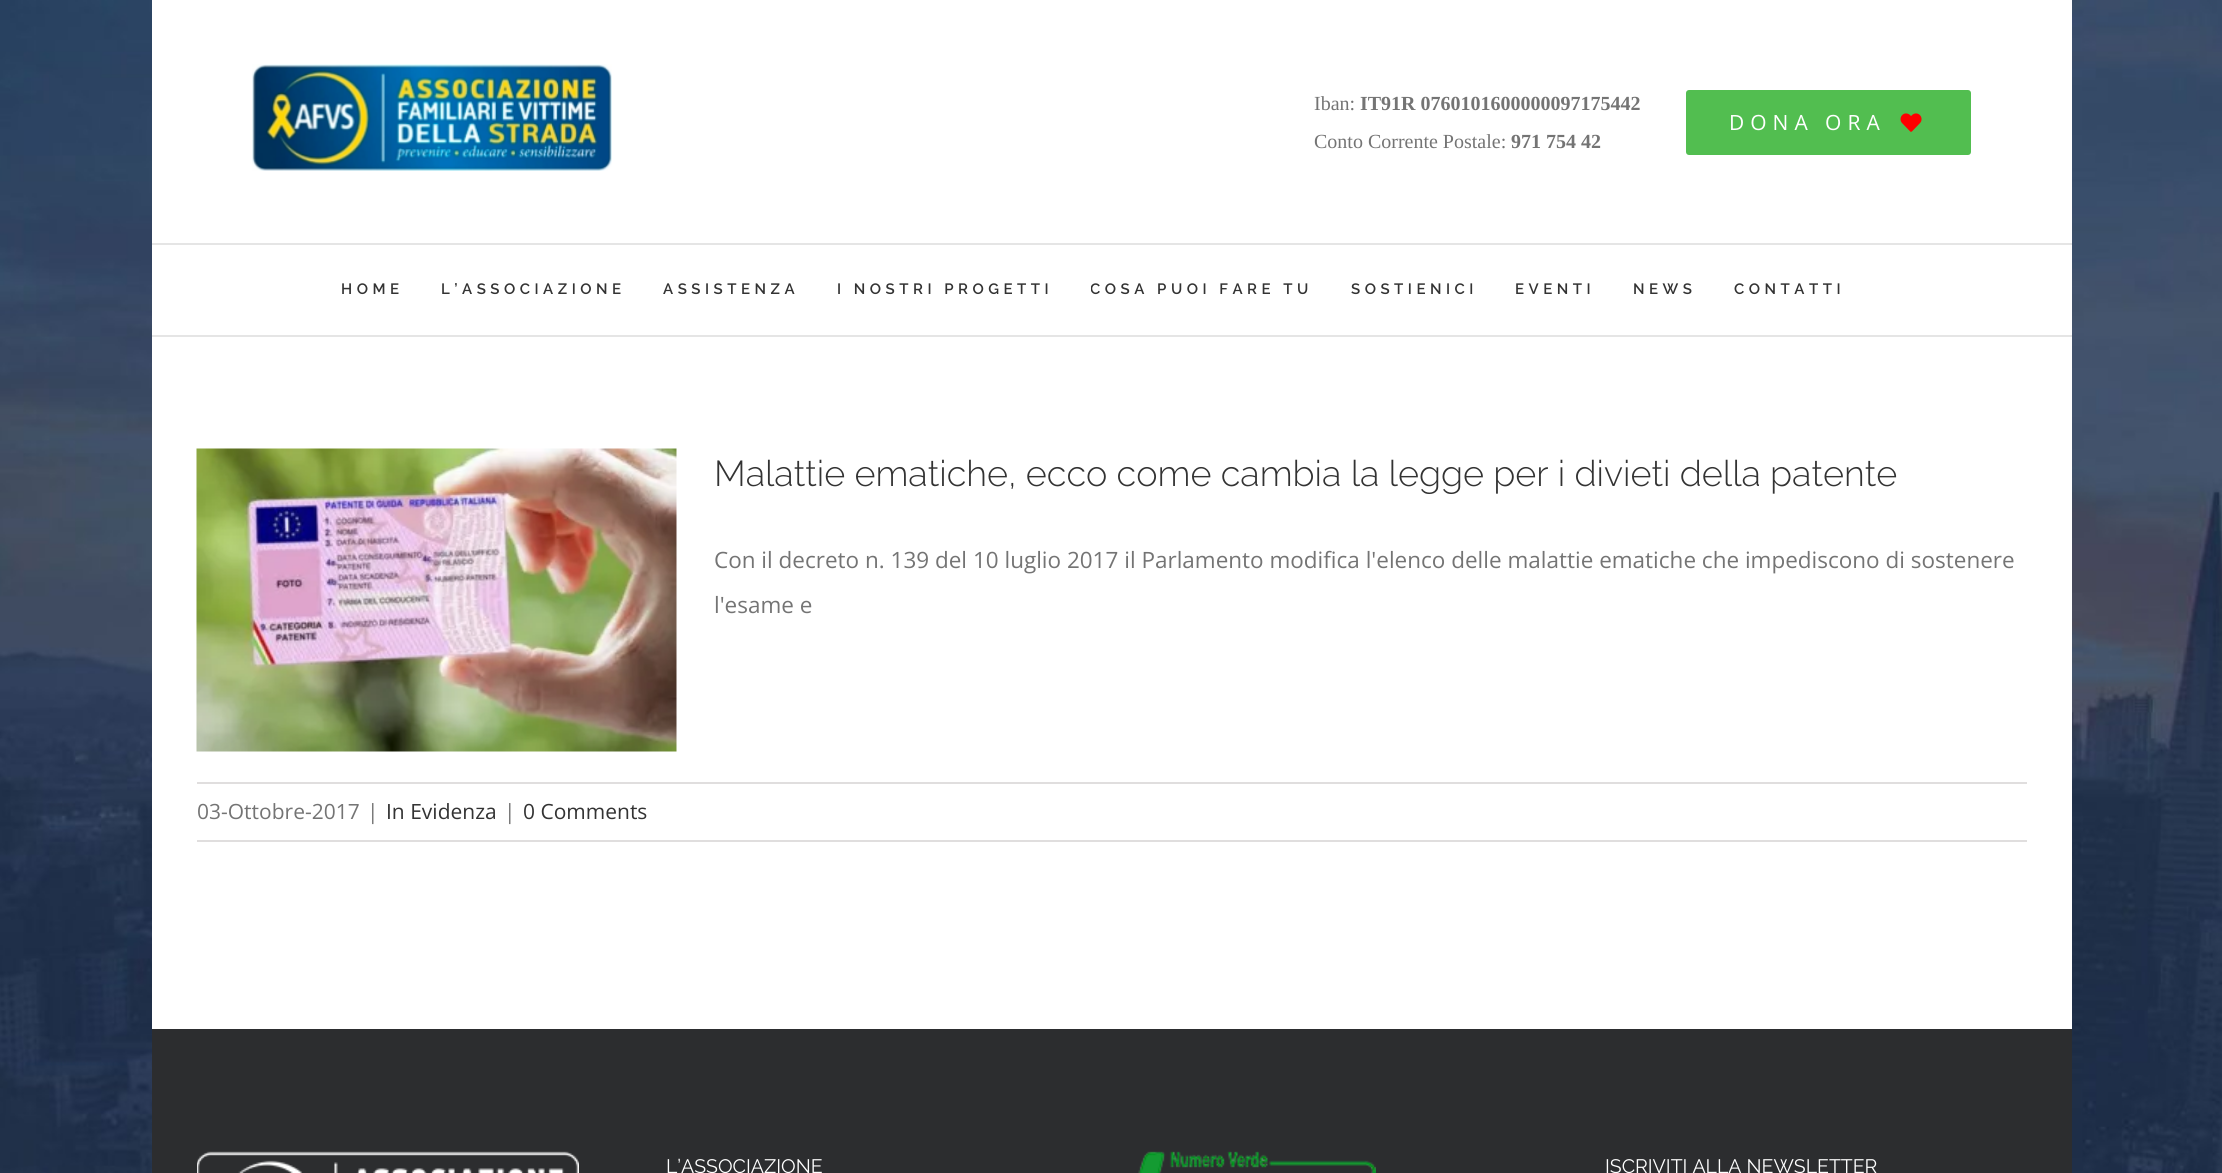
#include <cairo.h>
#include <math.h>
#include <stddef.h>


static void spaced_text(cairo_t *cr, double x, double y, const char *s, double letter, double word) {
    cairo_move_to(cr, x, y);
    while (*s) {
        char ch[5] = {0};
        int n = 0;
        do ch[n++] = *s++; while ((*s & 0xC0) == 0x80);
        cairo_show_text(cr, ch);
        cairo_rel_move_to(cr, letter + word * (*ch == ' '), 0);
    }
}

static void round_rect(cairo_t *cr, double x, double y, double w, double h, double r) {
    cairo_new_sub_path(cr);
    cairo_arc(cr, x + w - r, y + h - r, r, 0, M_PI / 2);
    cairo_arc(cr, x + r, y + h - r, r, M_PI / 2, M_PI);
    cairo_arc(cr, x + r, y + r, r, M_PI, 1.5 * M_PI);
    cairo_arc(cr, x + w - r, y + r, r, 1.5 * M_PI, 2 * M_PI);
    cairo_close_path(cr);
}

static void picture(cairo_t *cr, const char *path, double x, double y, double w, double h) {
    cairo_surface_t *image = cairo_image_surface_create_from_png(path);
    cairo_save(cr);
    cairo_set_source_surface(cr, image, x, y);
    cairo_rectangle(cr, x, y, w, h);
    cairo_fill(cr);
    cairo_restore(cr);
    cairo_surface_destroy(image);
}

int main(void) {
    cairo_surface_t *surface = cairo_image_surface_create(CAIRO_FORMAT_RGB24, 2222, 1173);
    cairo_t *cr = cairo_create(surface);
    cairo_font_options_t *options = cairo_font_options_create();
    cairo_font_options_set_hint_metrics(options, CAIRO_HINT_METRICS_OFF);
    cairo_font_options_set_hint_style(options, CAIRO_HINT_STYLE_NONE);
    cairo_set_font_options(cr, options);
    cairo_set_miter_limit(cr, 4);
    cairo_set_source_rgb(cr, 1, 1, 1);
    cairo_paint(cr);
    picture(cr, "img1.png", 0, 0, 2222, 1173);
    cairo_set_source_rgb(cr, 1, 1, 1);
    cairo_rectangle(cr, 152, 0, 1920, 243);
    cairo_fill(cr);
    cairo_set_source_rgb(cr, 0.898, 0.898, 0.898);
    cairo_rectangle(cr, 152, 243, 1920, 2);
    cairo_fill(cr);
    picture(cr, "img2.png", 252, 64, 360, 107);
    cairo_select_font_face(cr, "Liberation Serif", CAIRO_FONT_SLANT_NORMAL, CAIRO_FONT_WEIGHT_NORMAL);
    cairo_set_font_size(cr, 20);
    cairo_set_source_rgb(cr, 0.455, 0.455, 0.455);
    cairo_move_to(cr, 1314, 110);
    cairo_show_text(cr, "Iban:");
    cairo_select_font_face(cr, "Liberation Serif", CAIRO_FONT_SLANT_NORMAL, CAIRO_FONT_WEIGHT_BOLD);
    cairo_move_to(cr, 1360, 110);
    cairo_show_text(cr, "IT91R 0760101600000097175442");
    cairo_select_font_face(cr, "Liberation Serif", CAIRO_FONT_SLANT_NORMAL, CAIRO_FONT_WEIGHT_NORMAL);
    cairo_move_to(cr, 1314, 148);
    cairo_show_text(cr, "Conto Corrente Postale:");
    cairo_select_font_face(cr, "Liberation Serif", CAIRO_FONT_SLANT_NORMAL, CAIRO_FONT_WEIGHT_BOLD);
    cairo_move_to(cr, 1511, 148);
    cairo_show_text(cr, "971 754 42");
    cairo_set_source_rgb(cr, 0.322, 0.745, 0.314);
    round_rect(cr, 1686, 90, 285, 65, 3);
    cairo_fill(cr);
    cairo_select_font_face(cr, "Open Sans", CAIRO_FONT_SLANT_NORMAL, CAIRO_FONT_WEIGHT_NORMAL);
    cairo_set_font_size(cr, 21);
    cairo_set_source_rgb(cr, 1, 1, 1);
    spaced_text(cr, 1729, 130, "DONA ORA", 6, 0);
    picture(cr, "img3.png", 1900, 113, 22, 19);
    cairo_rectangle(cr, 152, 245, 1920, 90);
    cairo_fill(cr);
    cairo_set_source_rgb(cr, 0.898, 0.898, 0.898);
    cairo_rectangle(cr, 152, 335, 1920, 2);
    cairo_fill(cr);
    cairo_select_font_face(cr, "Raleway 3 Thin", CAIRO_FONT_SLANT_NORMAL, CAIRO_FONT_WEIGHT_NORMAL);
    cairo_set_font_size(cr, 15);
    cairo_set_source_rgb(cr, 0.2, 0.2, 0.2);
    spaced_text(cr, 341, 294, "HOME", 4.5, 0);
    spaced_text(cr, 441, 294, "L’ASSOCIAZIONE", 4.5, 0);
    spaced_text(cr, 663, 294, "ASSISTENZA", 4.5, 0);
    spaced_text(cr, 837, 294, "I NOSTRI PROGETTI", 4.5, 0);
    cairo_save(cr);
    cairo_rectangle(cr, 1091, 245, 259, 90);
    cairo_clip(cr);
    spaced_text(cr, 1090, 294, "COSA PUOI FARE TU", 4.5, 0);
    cairo_restore(cr);
    spaced_text(cr, 1351, 294, "SOSTIENICI", 4.5, 0);
    spaced_text(cr, 1515, 294, "EVENTI", 4.5, 0);
    spaced_text(cr, 1633, 294, "NEWS", 4.5, 0);
    spaced_text(cr, 1734, 294, "CONTATTI", 4.5, 0);
    cairo_set_source_rgb(cr, 1, 1, 1);
    cairo_rectangle(cr, 152, 337, 1920, 692);
    cairo_fill(cr);
    picture(cr, "img4.png", 196, 448, 481, 304);
    cairo_select_font_face(cr, "Raleway Thin", CAIRO_FONT_SLANT_NORMAL, CAIRO_FONT_WEIGHT_NORMAL);
    cairo_set_font_size(cr, 36);
    cairo_set_source_rgb(cr, 0.2, 0.2, 0.2);
    cairo_move_to(cr, 714, 486);
    cairo_show_text(cr, "Malattie ematiche, ecco come cambia la legge per i divieti della patente");
    cairo_select_font_face(cr, "Open Sans", CAIRO_FONT_SLANT_NORMAL, CAIRO_FONT_WEIGHT_NORMAL);
    cairo_set_font_size(cr, 22.5);
    cairo_set_source_rgb(cr, 0.455, 0.455, 0.455);
    cairo_move_to(cr, 714, 568);
    cairo_show_text(cr, "Con il decreto n. 139 del 10 luglio 2017 il Parlamento modifica l'elenco delle malattie ematiche che impediscono di sostenere");
    cairo_move_to(cr, 714, 613);
    cairo_show_text(cr, "l'esame e");
    cairo_set_source_rgb(cr, 0.878, 0.871, 0.871);
    cairo_rectangle(cr, 197, 782, 1830, 2);
    cairo_fill(cr);
    cairo_rectangle(cr, 197, 840, 1830, 2);
    cairo_fill(cr);
    cairo_set_font_size(cr, 21);
    cairo_set_source_rgb(cr, 0.455, 0.455, 0.455);
    cairo_move_to(cr, 197, 819);
    cairo_show_text(cr, "03-Ottobre-2017");
    cairo_move_to(cr, 367, 819);
    cairo_show_text(cr, "|");
    cairo_set_source_rgb(cr, 0.2, 0.2, 0.2);
    cairo_move_to(cr, 386, 819);
    cairo_show_text(cr, "In Evidenza");
    cairo_set_source_rgb(cr, 0.455, 0.455, 0.455);
    cairo_move_to(cr, 504, 819);
    cairo_show_text(cr, "|");
    cairo_set_source_rgb(cr, 0.2, 0.2, 0.2);
    cairo_move_to(cr, 523, 819);
    cairo_show_text(cr, "0 Comments");
    cairo_set_source_rgb(cr, 0.173, 0.176, 0.184);
    cairo_rectangle(cr, 152, 1029, 1920, 144);
    cairo_fill(cr);
    picture(cr, "img5.png", 197, 1151, 382, 22);
    cairo_select_font_face(cr, "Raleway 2 Thin", CAIRO_FONT_SLANT_NORMAL, CAIRO_FONT_WEIGHT_NORMAL);
    cairo_set_font_size(cr, 19.5);
    cairo_set_source_rgb(cr, 1, 1, 1);
    cairo_move_to(cr, 666, 1173);
    cairo_show_text(cr, "L’ASSOCIAZIONE");
    picture(cr, "img6.png", 1138, 1151, 238, 22);
    cairo_move_to(cr, 1605, 1173);
    cairo_show_text(cr, "ISCRIVITI ALLA NEWSLETTER");
    cairo_surface_write_to_png(surface, "page.png");
    cairo_font_options_destroy(options);
    cairo_destroy(cr);
    cairo_surface_destroy(surface);
    return 0;
}
